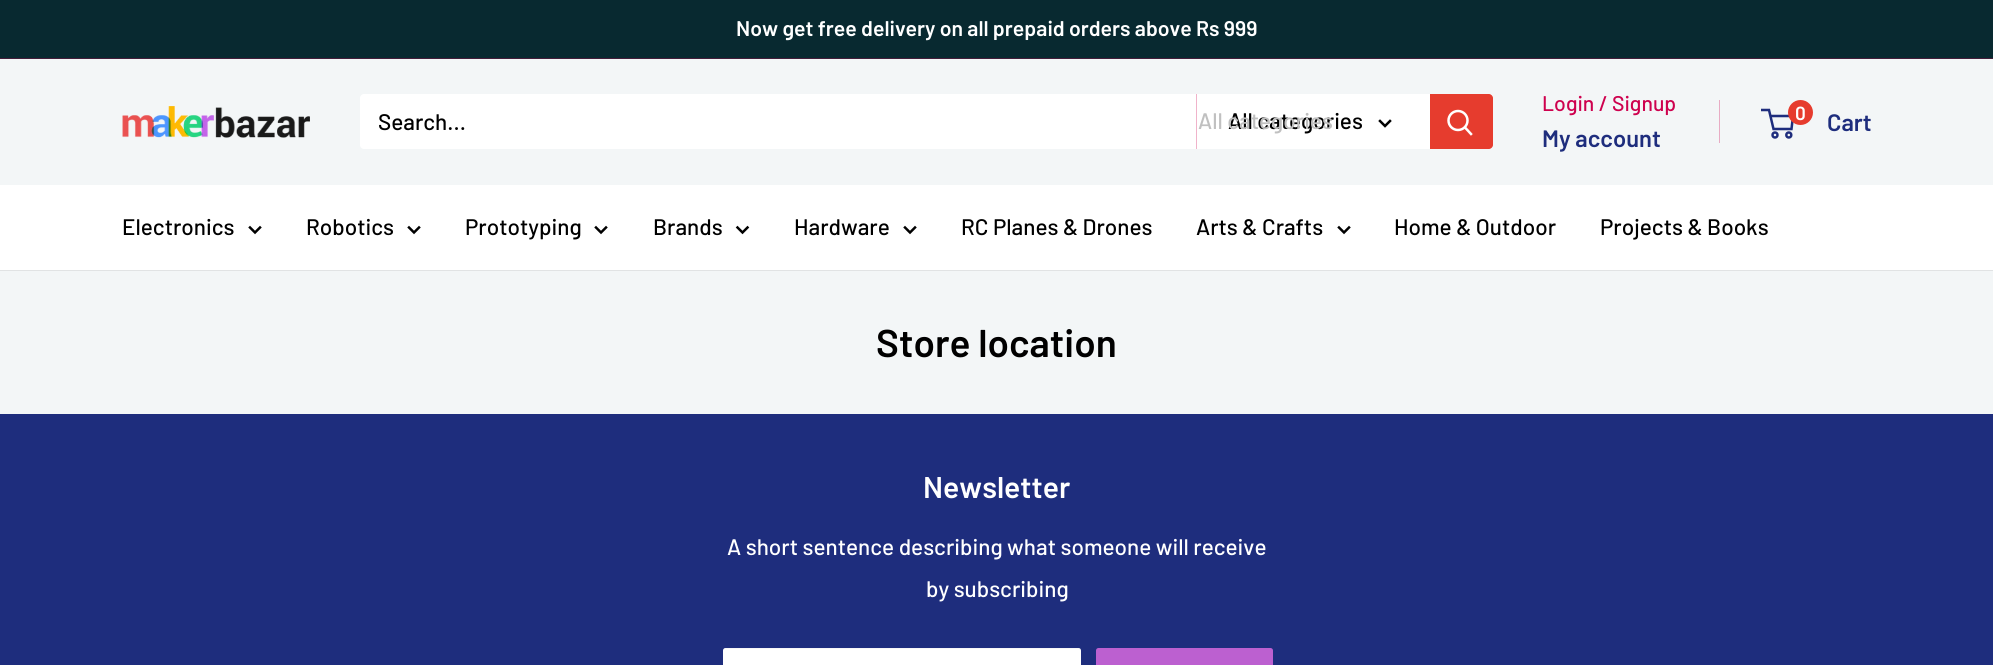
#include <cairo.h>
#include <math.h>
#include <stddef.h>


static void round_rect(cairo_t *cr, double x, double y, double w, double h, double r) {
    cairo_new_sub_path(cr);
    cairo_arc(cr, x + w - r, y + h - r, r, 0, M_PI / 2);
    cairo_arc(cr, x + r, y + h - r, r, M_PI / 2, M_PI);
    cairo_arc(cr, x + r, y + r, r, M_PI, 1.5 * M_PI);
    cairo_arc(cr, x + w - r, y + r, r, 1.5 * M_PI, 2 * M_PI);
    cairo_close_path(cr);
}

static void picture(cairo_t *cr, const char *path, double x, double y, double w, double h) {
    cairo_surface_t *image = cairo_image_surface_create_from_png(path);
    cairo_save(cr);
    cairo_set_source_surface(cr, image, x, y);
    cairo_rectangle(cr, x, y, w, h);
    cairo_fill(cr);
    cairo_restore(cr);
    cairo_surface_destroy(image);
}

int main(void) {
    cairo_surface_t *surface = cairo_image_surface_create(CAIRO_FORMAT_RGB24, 1993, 665);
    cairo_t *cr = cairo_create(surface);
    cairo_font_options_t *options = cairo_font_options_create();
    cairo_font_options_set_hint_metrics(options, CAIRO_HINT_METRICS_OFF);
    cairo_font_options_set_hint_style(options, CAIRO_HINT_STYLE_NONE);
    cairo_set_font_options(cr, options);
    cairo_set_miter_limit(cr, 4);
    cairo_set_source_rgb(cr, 0.953, 0.961, 0.965);
    cairo_paint(cr);
    cairo_set_source_rgb(cr, 0.035, 0.161, 0.188);
    cairo_rectangle(cr, 0, 0, 1993, 58);
    cairo_fill(cr);
    cairo_set_source_rgb(cr, 0.267, 0.114, 0.224);
    cairo_rectangle(cr, 0, 58, 1993, 1);
    cairo_fill(cr);
    cairo_select_font_face(cr, "Barlow SemiBold", CAIRO_FONT_SLANT_NORMAL, CAIRO_FONT_WEIGHT_NORMAL);
    cairo_set_font_size(cr, 21.25);
    cairo_set_source_rgb(cr, 1, 1, 1);
    cairo_move_to(cr, 736, 36);
    cairo_show_text(cr, "Now get free delivery on all prepaid orders above Rs 999");
    picture(cr, "img1.png", 122, 106, 188, 32);
    round_rect(cr, 360, 94, 1133, 55, 4);
    cairo_fill(cr);
    cairo_select_font_face(cr, "Barlow Medium", CAIRO_FONT_SLANT_NORMAL, CAIRO_FONT_WEIGHT_NORMAL);
    cairo_set_font_size(cr, 22.5);
    cairo_set_source_rgb(cr, 0, 0, 0);
    cairo_move_to(cr, 378, 130);
    cairo_show_text(cr, "Search...");
    cairo_set_source_rgb(cr, 0.941, 0.702, 0.792);
    cairo_rectangle(cr, 1196, 94, 1, 55);
    cairo_fill(cr);
    cairo_set_source_rgb(cr, 0, 0, 0);
    cairo_move_to(cr, 1228, 129);
    cairo_show_text(cr, "All categories");
    cairo_set_source_rgb(cr, 0.753, 0.753, 0.753);
    cairo_move_to(cr, 1198, 129);
    cairo_show_text(cr, "All categories");
    cairo_new_path(cr);
    cairo_move_to(cr, 1390, 121);
    cairo_line_to(cr, 1385, 126);
    cairo_line_to(cr, 1380, 121);
    cairo_set_source_rgb(cr, 0, 0, 0);
    cairo_set_line_width(cr, 2.5);
    cairo_set_line_cap(cr, CAIRO_LINE_CAP_SQUARE);
    cairo_stroke(cr);
    cairo_set_source_rgb(cr, 0.902, 0.235, 0.18);
    cairo_new_path(cr);
    cairo_move_to(cr, 1430, 94);
    cairo_line_to(cr, 1489, 94);
    cairo_curve_to(cr, 1491, 94, 1493, 96, 1493, 98);
    cairo_line_to(cr, 1493, 145);
    cairo_curve_to(cr, 1493, 147, 1491, 149, 1489, 149);
    cairo_line_to(cr, 1430, 149);
    cairo_close_path(cr);
    cairo_fill(cr);
    cairo_new_path(cr);
    cairo_move_to(cr, 1471, 134);
    cairo_line_to(cr, 1465, 127.5);
    cairo_set_source_rgb(cr, 1, 1, 1);
    cairo_stroke(cr);
    cairo_arc(cr, 1458, 120.5, 9.5, 0, 2 * M_PI);
    cairo_set_line_cap(cr, CAIRO_LINE_CAP_BUTT);
    cairo_stroke(cr);
    cairo_set_font_size(cr, 21.25);
    cairo_set_source_rgb(cr, 0.808, 0.004, 0.306);
    cairo_move_to(cr, 1542, 111);
    cairo_show_text(cr, "Login / Signup");
    cairo_set_source_rgb(cr, 0.91, 0.675, 0.769);
    cairo_rectangle(cr, 1719, 100, 1, 43);
    cairo_fill(cr);
    cairo_select_font_face(cr, "Barlow SemiBold", CAIRO_FONT_SLANT_NORMAL, CAIRO_FONT_WEIGHT_NORMAL);
    cairo_set_font_size(cr, 23.75);
    cairo_set_source_rgb(cr, 0.118, 0.176, 0.49);
    cairo_move_to(cr, 1542, 147);
    cairo_show_text(cr, "My account");
    cairo_new_path(cr);
    cairo_arc(cr, 1775, 135, 2.5, 0, 2 * M_PI);
    cairo_stroke(cr);
    cairo_arc(cr, 1788.8, 135, 2.5, 0, 2 * M_PI);
    cairo_stroke(cr);
    cairo_new_path(cr);
    cairo_move_to(cr, 1770.5, 116);
    cairo_line_to(cr, 1793, 116);
    cairo_line_to(cr, 1791.5, 129);
    cairo_line_to(cr, 1773.5, 129);
    cairo_line_to(cr, 1769, 110);
    cairo_line_to(cr, 1761, 110);
    cairo_stroke(cr);
    cairo_set_source_rgb(cr, 0.902, 0.235, 0.18);
    cairo_arc(cr, 1800.5, 112.5, 12.5, 0, 2 * M_PI);
    cairo_fill(cr);
    cairo_set_font_size(cr, 19);
    cairo_set_source_rgb(cr, 1, 1, 1);
    cairo_move_to(cr, 1795, 120);
    cairo_show_text(cr, "0");
    cairo_set_font_size(cr, 23.75);
    cairo_set_source_rgb(cr, 0.118, 0.176, 0.49);
    cairo_move_to(cr, 1827, 131);
    cairo_show_text(cr, "Cart");
    cairo_set_source_rgb(cr, 1, 1, 1);
    cairo_rectangle(cr, 0, 185, 1993, 85);
    cairo_fill(cr);
    cairo_set_source_rgb(cr, 0.882, 0.89, 0.894);
    cairo_rectangle(cr, 0, 270, 1993, 1);
    cairo_fill(cr);
    cairo_select_font_face(cr, "Barlow Medium", CAIRO_FONT_SLANT_NORMAL, CAIRO_FONT_WEIGHT_NORMAL);
    cairo_set_font_size(cr, 22.5);
    cairo_set_source_rgb(cr, 0, 0, 0);
    cairo_move_to(cr, 122, 235);
    cairo_show_text(cr, "Electronics");
    cairo_new_path(cr);
    cairo_move_to(cr, 260, 227.5);
    cairo_line_to(cr, 255, 232.5);
    cairo_line_to(cr, 250, 227.5);
    cairo_set_line_cap(cr, CAIRO_LINE_CAP_SQUARE);
    cairo_stroke(cr);
    cairo_move_to(cr, 306, 235);
    cairo_show_text(cr, "Robotics");
    cairo_new_path(cr);
    cairo_move_to(cr, 419, 227.5);
    cairo_line_to(cr, 414, 232.5);
    cairo_line_to(cr, 409, 227.5);
    cairo_stroke(cr);
    cairo_move_to(cr, 465, 235);
    cairo_show_text(cr, "Prototyping");
    cairo_new_path(cr);
    cairo_move_to(cr, 606, 227.5);
    cairo_line_to(cr, 601, 232.5);
    cairo_line_to(cr, 596, 227.5);
    cairo_stroke(cr);
    cairo_move_to(cr, 653, 235);
    cairo_show_text(cr, "Brands");
    cairo_new_path(cr);
    cairo_move_to(cr, 747.5, 227.5);
    cairo_line_to(cr, 742.5, 232.5);
    cairo_line_to(cr, 737.5, 227.5);
    cairo_stroke(cr);
    cairo_move_to(cr, 794, 235);
    cairo_show_text(cr, "Hardware");
    cairo_new_path(cr);
    cairo_move_to(cr, 915, 227.5);
    cairo_line_to(cr, 910, 232.5);
    cairo_line_to(cr, 905, 227.5);
    cairo_stroke(cr);
    cairo_move_to(cr, 961, 235);
    cairo_show_text(cr, "RC Planes & Drones");
    cairo_move_to(cr, 1196, 235);
    cairo_show_text(cr, "Arts & Crafts");
    cairo_new_path(cr);
    cairo_move_to(cr, 1349, 227.5);
    cairo_line_to(cr, 1344, 232.5);
    cairo_line_to(cr, 1339, 227.5);
    cairo_stroke(cr);
    cairo_move_to(cr, 1394, 235);
    cairo_show_text(cr, "Home & Outdoor");
    cairo_move_to(cr, 1600, 235);
    cairo_show_text(cr, "Projects & Books");
    cairo_select_font_face(cr, "Barlow SemiBold", CAIRO_FONT_SLANT_NORMAL, CAIRO_FONT_WEIGHT_NORMAL);
    cairo_set_font_size(cr, 38.75);
    cairo_move_to(cr, 876, 357);
    cairo_show_text(cr, "Store location");
    cairo_set_source_rgb(cr, 0.118, 0.176, 0.49);
    cairo_rectangle(cr, 0, 414, 1993, 251);
    cairo_fill(cr);
    cairo_set_font_size(cr, 30);
    cairo_set_source_rgb(cr, 1, 1, 1);
    cairo_move_to(cr, 923, 498);
    cairo_show_text(cr, "Newsletter");
    cairo_select_font_face(cr, "Barlow Medium", CAIRO_FONT_SLANT_NORMAL, CAIRO_FONT_WEIGHT_NORMAL);
    cairo_set_font_size(cr, 22.5);
    cairo_move_to(cr, 727, 555);
    cairo_show_text(cr, "A short sentence describing what someone will receive");
    cairo_move_to(cr, 926, 597);
    cairo_show_text(cr, "by subscribing");
    round_rect(cr, 723, 648, 358, 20, 2.5);
    cairo_fill(cr);
    cairo_set_source_rgba(cr, 0.882, 0.89, 0.894, 0.25);
    cairo_new_path(cr);
    cairo_move_to(cr, 725, 649);
    cairo_line_to(cr, 1079, 649);
    cairo_curve_to(cr, 1080, 649, 1081, 650, 1081, 651);
    cairo_line_to(cr, 1081, 650);
    cairo_curve_to(cr, 1081, 649, 1080, 648, 1078, 648);
    cairo_line_to(cr, 726, 648);
    cairo_curve_to(cr, 724, 648, 724, 649, 723, 650);
    cairo_close_path(cr);
    cairo_fill(cr);
    cairo_set_source_rgb(cr, 0.737, 0.376, 0.816);
    round_rect(cr, 1096, 648, 177, 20, 2.5);
    cairo_fill(cr);
    cairo_surface_write_to_png(surface, "page.png");
    cairo_font_options_destroy(options);
    cairo_destroy(cr);
    cairo_surface_destroy(surface);
    return 0;
}
